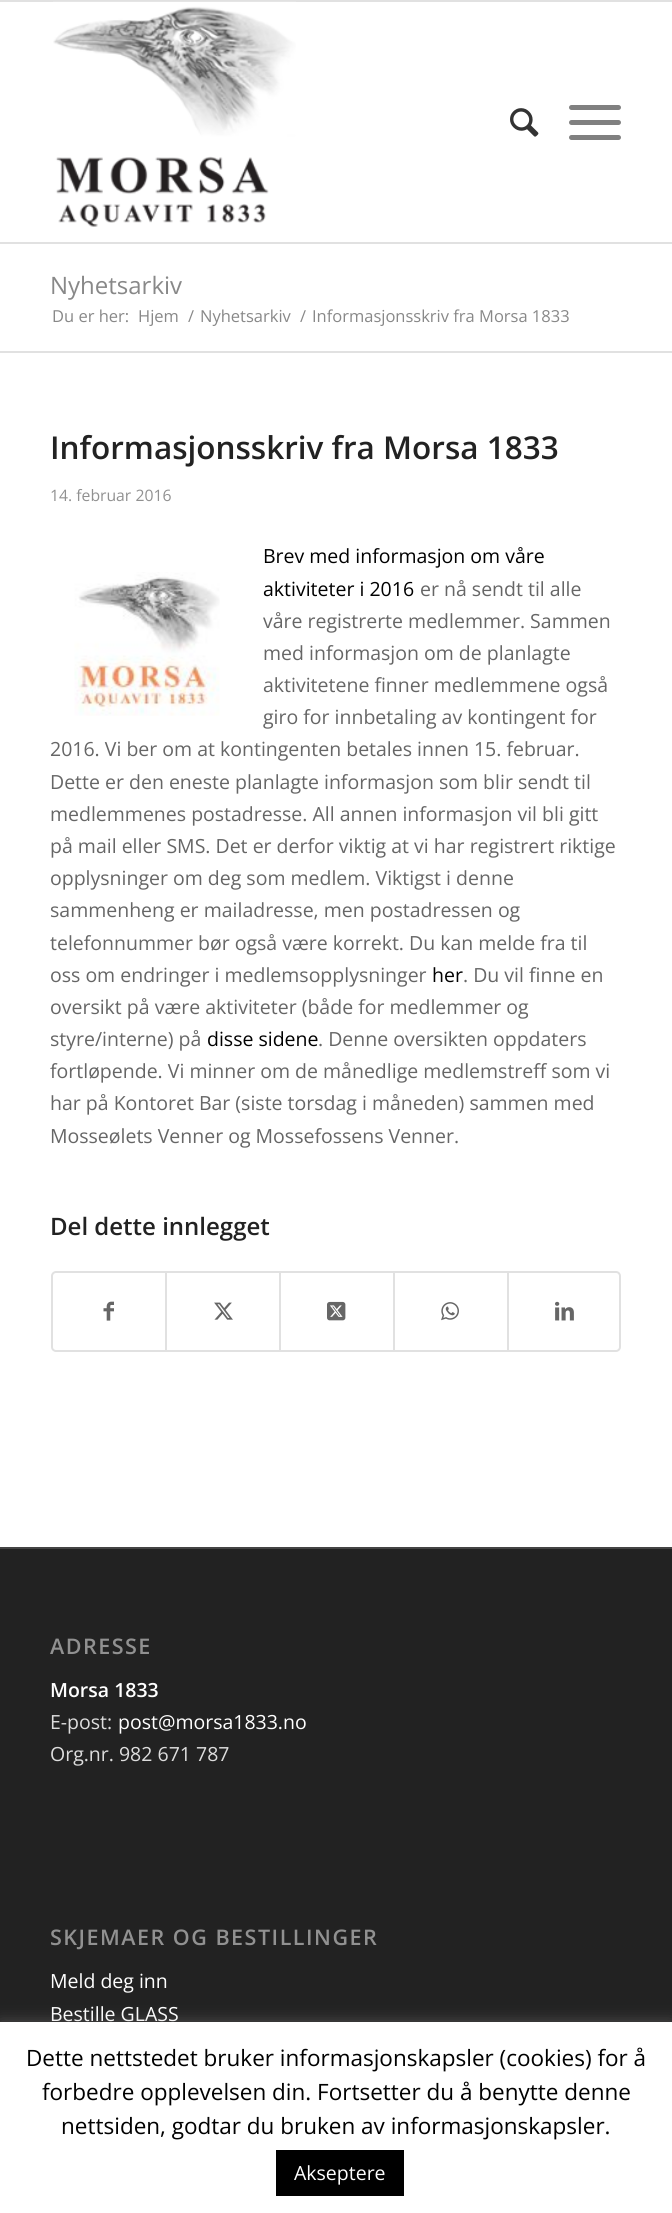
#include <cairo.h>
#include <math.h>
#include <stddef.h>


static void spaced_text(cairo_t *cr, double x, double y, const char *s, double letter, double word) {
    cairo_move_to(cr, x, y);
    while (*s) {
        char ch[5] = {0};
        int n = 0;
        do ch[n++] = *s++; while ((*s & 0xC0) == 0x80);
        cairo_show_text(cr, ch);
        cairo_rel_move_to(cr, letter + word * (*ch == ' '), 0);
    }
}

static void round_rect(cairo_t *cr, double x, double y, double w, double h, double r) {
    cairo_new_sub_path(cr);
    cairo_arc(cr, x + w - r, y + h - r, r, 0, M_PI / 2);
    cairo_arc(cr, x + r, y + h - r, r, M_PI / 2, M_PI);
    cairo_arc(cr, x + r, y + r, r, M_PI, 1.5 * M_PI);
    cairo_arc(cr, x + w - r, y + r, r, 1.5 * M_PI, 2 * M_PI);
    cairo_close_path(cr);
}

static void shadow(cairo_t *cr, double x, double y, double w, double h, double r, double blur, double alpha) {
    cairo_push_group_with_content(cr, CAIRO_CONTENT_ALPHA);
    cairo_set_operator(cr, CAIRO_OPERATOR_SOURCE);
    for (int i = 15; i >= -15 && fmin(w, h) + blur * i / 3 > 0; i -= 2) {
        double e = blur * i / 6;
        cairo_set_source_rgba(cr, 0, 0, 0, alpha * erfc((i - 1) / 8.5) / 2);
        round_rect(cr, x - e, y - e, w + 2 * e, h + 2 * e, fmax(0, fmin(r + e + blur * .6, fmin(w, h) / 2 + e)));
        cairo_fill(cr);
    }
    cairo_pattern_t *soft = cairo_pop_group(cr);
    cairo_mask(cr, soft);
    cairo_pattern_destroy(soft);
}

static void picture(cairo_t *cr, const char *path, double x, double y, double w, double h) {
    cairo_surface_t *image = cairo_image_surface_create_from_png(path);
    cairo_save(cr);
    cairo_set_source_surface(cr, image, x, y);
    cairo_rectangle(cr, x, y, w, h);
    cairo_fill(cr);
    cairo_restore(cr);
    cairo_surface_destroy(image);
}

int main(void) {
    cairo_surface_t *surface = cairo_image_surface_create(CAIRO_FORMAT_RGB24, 672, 2213);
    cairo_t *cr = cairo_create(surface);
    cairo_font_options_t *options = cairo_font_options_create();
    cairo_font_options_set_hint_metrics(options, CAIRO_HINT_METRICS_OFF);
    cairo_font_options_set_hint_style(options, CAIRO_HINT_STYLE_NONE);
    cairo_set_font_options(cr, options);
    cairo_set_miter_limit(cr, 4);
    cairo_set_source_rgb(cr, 1, 1, 1);
    cairo_paint(cr);
    cairo_set_source_rgb(cr, 0.882, 0.882, 0.882);
    cairo_rectangle(cr, 0, 0, 672, 2);
    cairo_fill(cr);
    cairo_rectangle(cr, 0, 242, 672, 2);
    cairo_fill(cr);
    picture(cr, "img1.png", 53, 1, 243, 226);
    picture(cr, "img2.png", 510, 108, 29, 29);
    cairo_set_source_rgb(cr, 0.502, 0.502, 0.502);
    round_rect(cr, 569, 120, 52, 5, 2.5);
    cairo_fill(cr);
    round_rect(cr, 569, 105, 52, 5, 2.5);
    cairo_fill(cr);
    round_rect(cr, 569, 135, 52, 5, 2.5);
    cairo_fill(cr);
    cairo_select_font_face(cr, "Open Sans", CAIRO_FONT_SLANT_NORMAL, CAIRO_FONT_WEIGHT_NORMAL);
    cairo_set_font_size(cr, 24);
    cairo_set_source_rgb(cr, 0.533, 0.533, 0.533);
    cairo_move_to(cr, 50, 294);
    cairo_show_text(cr, "Nyhetsarkiv");
    cairo_set_font_size(cr, 16.5);
    cairo_move_to(cr, 52, 322);
    cairo_show_text(cr, "Du er her:");
    cairo_move_to(cr, 138, 322);
    cairo_show_text(cr, "Hjem");
    cairo_move_to(cr, 188, 322);
    cairo_show_text(cr, "/");
    cairo_move_to(cr, 200, 322);
    cairo_show_text(cr, "Nyhetsarkiv");
    cairo_move_to(cr, 300, 322);
    cairo_show_text(cr, "/");
    cairo_move_to(cr, 312, 322);
    cairo_show_text(cr, "Informasjonsskriv fra Morsa 1833");
    cairo_set_source_rgb(cr, 0.882, 0.882, 0.882);
    cairo_rectangle(cr, 0, 351, 672, 2);
    cairo_fill(cr);
    cairo_select_font_face(cr, "Open Sans SemiBold", CAIRO_FONT_SLANT_NORMAL, CAIRO_FONT_WEIGHT_NORMAL);
    cairo_set_font_size(cr, 31.5);
    cairo_set_source_rgb(cr, 0.133, 0.133, 0.133);
    cairo_move_to(cr, 50, 459);
    cairo_show_text(cr, "Informasjonsskriv fra Morsa 1833");
    cairo_select_font_face(cr, "Open Sans", CAIRO_FONT_SLANT_NORMAL, CAIRO_FONT_WEIGHT_NORMAL);
    cairo_set_font_size(cr, 15.75);
    cairo_set_source_rgb(cr, 0.569, 0.569, 0.569);
    cairo_move_to(cr, 50, 501);
    cairo_show_text(cr, "14. februar 2016");
    cairo_set_font_size(cr, 19.5);
    cairo_set_source_rgb(cr, 0, 0, 0);
    cairo_move_to(cr, 263, 563);
    cairo_show_text(cr, "Brev med informasjon om våre");
    picture(cr, "img3.png", 74, 572, 146, 144);
    cairo_move_to(cr, 263, 596);
    cairo_show_text(cr, "aktiviteter i 2016");
    cairo_set_source_rgb(cr, 0.4, 0.4, 0.4);
    cairo_move_to(cr, 420, 596);
    cairo_show_text(cr, "er nå sendt til alle");
    cairo_move_to(cr, 263, 628);
    cairo_show_text(cr, "våre registrerte medlemmer. Sammen");
    cairo_move_to(cr, 263, 660);
    cairo_show_text(cr, "med informasjon om de planlagte");
    cairo_move_to(cr, 263, 692);
    cairo_show_text(cr, "aktivitetene finner medlemmene også");
    cairo_move_to(cr, 263, 724);
    cairo_show_text(cr, "giro for innbetaling av kontingent for");
    cairo_move_to(cr, 50, 756);
    cairo_show_text(cr, "2016. Vi ber om at kontingenten betales innen 15. februar.");
    cairo_move_to(cr, 50, 789);
    cairo_show_text(cr, "Dette er den eneste planlagte informasjon som blir sendt til");
    cairo_move_to(cr, 50, 821);
    cairo_show_text(cr, "medlemmenes postadresse. All annen informasjon vil bli gitt");
    cairo_move_to(cr, 50, 853);
    cairo_show_text(cr, "på mail eller SMS. Det er derfor viktig at vi har registrert riktige");
    cairo_move_to(cr, 50, 885);
    cairo_show_text(cr, "opplysninger om deg som medlem. Viktigst i denne");
    cairo_move_to(cr, 50, 917);
    cairo_show_text(cr, "sammenheng er mailadresse, men postadressen og");
    cairo_move_to(cr, 50, 950);
    cairo_show_text(cr, "telefonnummer bør også være korrekt. Du kan melde fra til");
    cairo_move_to(cr, 50, 982);
    cairo_show_text(cr, "oss om endringer i medlemsopplysninger");
    cairo_set_source_rgb(cr, 0, 0, 0);
    cairo_move_to(cr, 432, 982);
    cairo_show_text(cr, "her");
    cairo_set_source_rgb(cr, 0.4, 0.4, 0.4);
    cairo_move_to(cr, 463, 982);
    cairo_show_text(cr, ". Du vil finne en");
    cairo_move_to(cr, 50, 1014);
    cairo_show_text(cr, "oversikt på være aktiviteter (både for medlemmer og");
    cairo_move_to(cr, 50, 1046);
    cairo_show_text(cr, "styre/interne) på");
    cairo_set_source_rgb(cr, 0, 0, 0);
    cairo_move_to(cr, 207, 1046);
    cairo_show_text(cr, "disse sidene");
    cairo_set_source_rgb(cr, 0.4, 0.4, 0.4);
    cairo_move_to(cr, 318, 1046);
    cairo_show_text(cr, ". Denne oversikten oppdaters");
    cairo_move_to(cr, 50, 1078);
    cairo_show_text(cr, "fortløpende. Vi minner om de månedlige medlemstreff som vi");
    cairo_move_to(cr, 50, 1110);
    cairo_show_text(cr, "har på Kontoret Bar (siste torsdag i måneden) sammen med");
    cairo_move_to(cr, 50, 1143);
    cairo_show_text(cr, "Mosseølets Venner og Mossefossens Venner.");
    cairo_select_font_face(cr, "Open Sans SemiBold", CAIRO_FONT_SLANT_NORMAL, CAIRO_FONT_WEIGHT_NORMAL);
    cairo_set_font_size(cr, 24);
    cairo_set_source_rgb(cr, 0.133, 0.133, 0.133);
    cairo_move_to(cr, 50, 1235);
    cairo_show_text(cr, "Del dette innlegget");
    round_rect(cr, 52, 1272, 568, 79, 4);
    cairo_set_source_rgb(cr, 0.882, 0.882, 0.882);
    cairo_stroke(cr);
    picture(cr, "img4.png", 103, 1301, 11, 20);
    cairo_rectangle(cr, 165, 1272, 2, 78);
    cairo_fill(cr);
    picture(cr, "img5.png", 214, 1302, 19, 18);
    cairo_rectangle(cr, 279, 1272, 2, 78);
    cairo_fill(cr);
    picture(cr, "img6.png", 327, 1301, 19, 20);
    cairo_rectangle(cr, 393, 1272, 2, 78);
    cairo_fill(cr);
    picture(cr, "img7.png", 441, 1302, 18, 19);
    cairo_rectangle(cr, 507, 1272, 2, 78);
    cairo_fill(cr);
    picture(cr, "img8.png", 555, 1301, 19, 20);
    cairo_set_source_rgb(cr, 0.133, 0.133, 0.133);
    cairo_rectangle(cr, 0, 1549, 672, 473);
    cairo_fill(cr);
    cairo_set_source_rgb(cr, 0.267, 0.267, 0.267);
    cairo_rectangle(cr, 0, 1547, 672, 2);
    cairo_fill(cr);
    cairo_set_font_size(cr, 21.5);
    cairo_set_source_rgb(cr, 0.569, 0.569, 0.569);
    spaced_text(cr, 50, 1654, "ADRESSE", 1.5, 0);
    cairo_set_font_size(cr, 19.5);
    cairo_set_source_rgb(cr, 1, 1, 1);
    cairo_move_to(cr, 50, 1697);
    cairo_show_text(cr, "Morsa 1833");
    cairo_select_font_face(cr, "Open Sans", CAIRO_FONT_SLANT_NORMAL, CAIRO_FONT_WEIGHT_NORMAL);
    cairo_set_source_rgb(cr, 0.867, 0.867, 0.867);
    cairo_move_to(cr, 50, 1729);
    cairo_show_text(cr, "E-post:");
    cairo_set_source_rgb(cr, 1, 1, 1);
    cairo_move_to(cr, 118, 1729);
    cairo_show_text(cr, "post@morsa1833.no");
    cairo_set_source_rgb(cr, 0.867, 0.867, 0.867);
    cairo_move_to(cr, 50, 1761);
    cairo_show_text(cr, "Org.nr. 982 671 787");
    cairo_select_font_face(cr, "Open Sans SemiBold", CAIRO_FONT_SLANT_NORMAL, CAIRO_FONT_WEIGHT_NORMAL);
    cairo_set_font_size(cr, 21.5);
    cairo_set_source_rgb(cr, 0.569, 0.569, 0.569);
    spaced_text(cr, 50, 1945, "SKJEMAER OG BESTILLINGER", 1.5, 0);
    cairo_select_font_face(cr, "Open Sans", CAIRO_FONT_SLANT_NORMAL, CAIRO_FONT_WEIGHT_NORMAL);
    cairo_set_font_size(cr, 19.5);
    cairo_set_source_rgb(cr, 1, 1, 1);
    cairo_move_to(cr, 50, 1988);
    cairo_show_text(cr, "Meld deg inn");
    cairo_move_to(cr, 50, 2021);
    cairo_show_text(cr, "Bestille GLASS");
    cairo_set_source_rgb(cr, 0.675, 0.671, 0.671);
    shadow(cr, 0, 2021, 672, 192, 0, 7.5, 0.3);
    cairo_set_source_rgb(cr, 1, 1, 1);
    cairo_rectangle(cr, 0, 2022, 672, 191);
    cairo_fill(cr);
    cairo_set_font_size(cr, 22.5);
    cairo_set_source_rgb(cr, 0, 0, 0);
    cairo_move_to(cr, 26, 2066);
    cairo_show_text(cr, "Dette nettstedet bruker informasjonskapsler (cookies) for å");
    cairo_move_to(cr, 42, 2100);
    cairo_show_text(cr, "forbedre opplevelsen din. Fortsetter du å benytte denne");
    cairo_move_to(cr, 61, 2134);
    cairo_show_text(cr, "nettsiden, godtar du bruken av informasjonskapsler.");
    cairo_rectangle(cr, 276, 2150, 128, 46);
    cairo_fill(cr);
    cairo_set_font_size(cr, 19.5);
    cairo_set_source_rgb(cr, 1, 1, 1);
    cairo_move_to(cr, 294, 2180);
    cairo_show_text(cr, "Akseptere");
    cairo_surface_write_to_png(surface, "page.png");
    cairo_font_options_destroy(options);
    cairo_destroy(cr);
    cairo_surface_destroy(surface);
    return 0;
}
